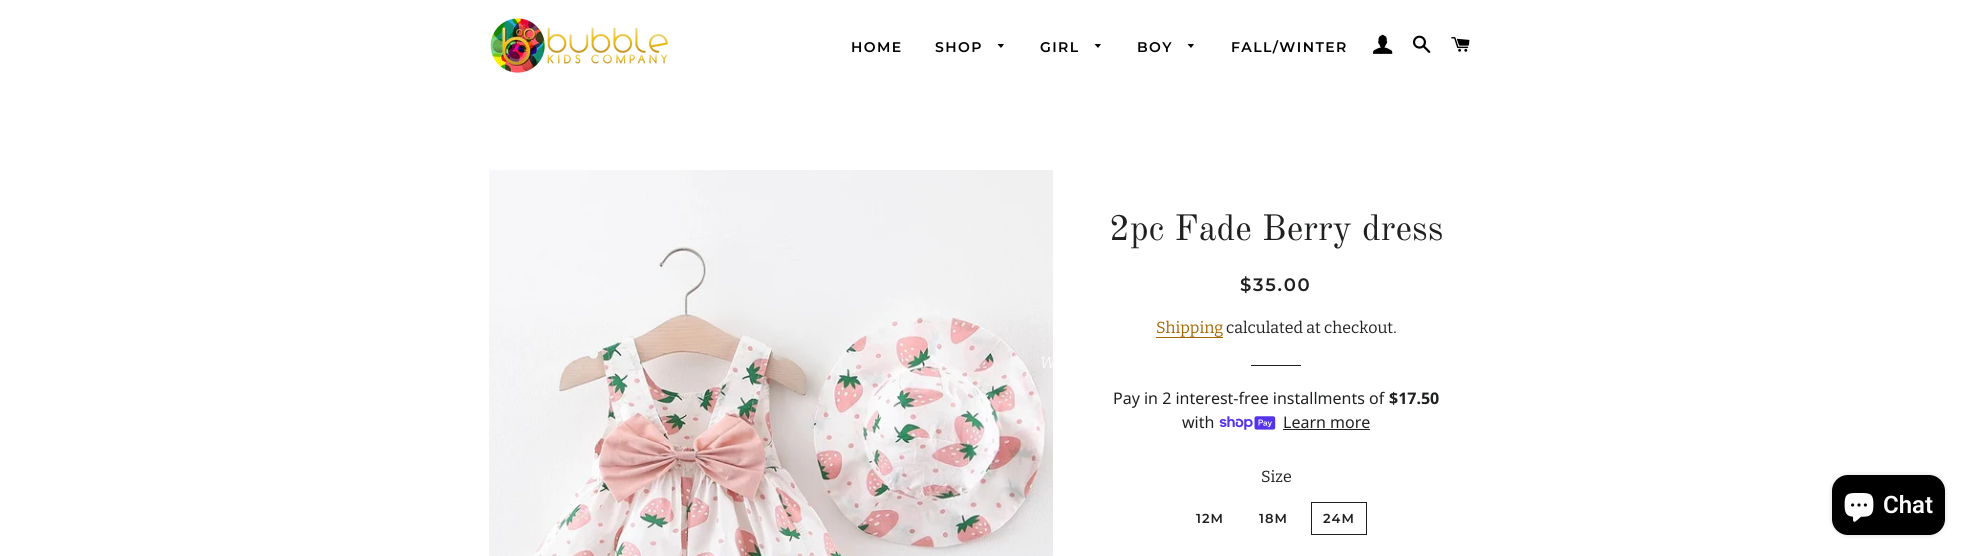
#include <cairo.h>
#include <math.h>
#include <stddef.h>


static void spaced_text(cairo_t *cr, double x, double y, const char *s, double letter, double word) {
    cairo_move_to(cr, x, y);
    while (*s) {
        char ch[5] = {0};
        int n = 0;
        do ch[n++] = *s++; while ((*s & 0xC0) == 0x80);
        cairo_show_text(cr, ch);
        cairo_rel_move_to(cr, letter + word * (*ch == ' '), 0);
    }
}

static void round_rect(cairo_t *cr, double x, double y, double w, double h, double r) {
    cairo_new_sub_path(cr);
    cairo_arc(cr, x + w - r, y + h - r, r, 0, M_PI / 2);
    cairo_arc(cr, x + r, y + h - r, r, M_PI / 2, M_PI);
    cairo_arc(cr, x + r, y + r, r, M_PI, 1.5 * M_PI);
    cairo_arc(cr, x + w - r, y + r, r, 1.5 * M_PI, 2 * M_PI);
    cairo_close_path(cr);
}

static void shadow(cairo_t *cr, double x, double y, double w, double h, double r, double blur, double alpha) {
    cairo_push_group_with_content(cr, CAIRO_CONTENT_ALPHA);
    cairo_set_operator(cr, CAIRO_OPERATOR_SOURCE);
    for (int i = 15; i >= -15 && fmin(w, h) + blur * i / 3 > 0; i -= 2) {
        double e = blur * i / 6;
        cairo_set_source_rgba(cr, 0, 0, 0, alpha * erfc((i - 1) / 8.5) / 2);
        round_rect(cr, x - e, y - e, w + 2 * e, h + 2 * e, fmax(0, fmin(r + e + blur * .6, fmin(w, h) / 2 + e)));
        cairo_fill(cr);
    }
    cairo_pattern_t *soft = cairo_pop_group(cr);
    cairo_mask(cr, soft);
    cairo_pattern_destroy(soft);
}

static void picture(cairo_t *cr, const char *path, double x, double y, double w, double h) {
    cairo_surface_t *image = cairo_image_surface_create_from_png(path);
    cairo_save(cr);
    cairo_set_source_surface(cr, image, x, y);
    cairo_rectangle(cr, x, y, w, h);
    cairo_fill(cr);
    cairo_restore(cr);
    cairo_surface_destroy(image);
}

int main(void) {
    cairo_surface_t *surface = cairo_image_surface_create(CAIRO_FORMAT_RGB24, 1967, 556);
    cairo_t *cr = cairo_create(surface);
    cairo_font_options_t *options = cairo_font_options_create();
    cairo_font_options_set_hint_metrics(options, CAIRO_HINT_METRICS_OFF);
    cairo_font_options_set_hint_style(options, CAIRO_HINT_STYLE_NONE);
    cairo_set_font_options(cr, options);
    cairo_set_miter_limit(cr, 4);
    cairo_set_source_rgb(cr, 1, 1, 1);
    cairo_paint(cr);
    picture(cr, "img1.png", 490, 18, 178, 55);
    cairo_select_font_face(cr, "Montserrat SemiBold", CAIRO_FONT_SLANT_NORMAL, CAIRO_FONT_WEIGHT_NORMAL);
    cairo_set_font_size(cr, 14);
    cairo_set_source_rgb(cr, 0, 0, 0);
    spaced_text(cr, 851, 52, "HOME", 1.4, 0);
    spaced_text(cr, 935, 52, "SHOP", 1.4, 0);
    cairo_new_path(cr);
    cairo_move_to(cr, 997.5, 44);
    cairo_line_to(cr, 1001, 48);
    cairo_line_to(cr, 1004, 44);
    cairo_close_path(cr);
    cairo_fill(cr);
    spaced_text(cr, 1040, 52, "GIRL", 1.4, 0);
    cairo_new_path(cr);
    cairo_move_to(cr, 1094.5, 44);
    cairo_line_to(cr, 1098, 48);
    cairo_line_to(cr, 1101, 44);
    cairo_close_path(cr);
    cairo_fill(cr);
    picture(cr, "img5.png", 489, 170, 564, 386);
    cairo_select_font_face(cr, "Bitter", CAIRO_FONT_SLANT_ITALIC, CAIRO_FONT_WEIGHT_NORMAL);
    cairo_set_font_size(cr, 16);
    cairo_set_source_rgb(cr, 0.984, 0.984, 0.984);
    cairo_move_to(cr, 1040, 368);
    cairo_show_text(cr, "W");
    cairo_select_font_face(cr, "Montserrat SemiBold", CAIRO_FONT_SLANT_NORMAL, CAIRO_FONT_WEIGHT_NORMAL);
    cairo_set_font_size(cr, 14);
    cairo_set_source_rgb(cr, 0, 0, 0);
    spaced_text(cr, 1137, 52, "BOY", 1.4, 0);
    cairo_new_path(cr);
    cairo_move_to(cr, 1187.5, 44);
    cairo_line_to(cr, 1191, 48);
    cairo_line_to(cr, 1194, 44);
    cairo_close_path(cr);
    cairo_fill(cr);
    spaced_text(cr, 1231, 52, "FALL/WINTER", 1.4, 0);
    picture(cr, "img2.png", 1373, 34, 20, 20);
    picture(cr, "img3.png", 1413, 35, 18, 18);
    picture(cr, "img4.png", 1451, 37, 19, 15);
    cairo_select_font_face(cr, "Old Standard TT", CAIRO_FONT_SLANT_NORMAL, CAIRO_FONT_WEIGHT_NORMAL);
    cairo_set_font_size(cr, 36);
    cairo_set_source_rgb(cr, 0.122, 0.125, 0.129);
    cairo_move_to(cr, 1109, 240);
    cairo_show_text(cr, "2pc Fade Berry dress");
    cairo_select_font_face(cr, "Montserrat SemiBold", CAIRO_FONT_SLANT_NORMAL, CAIRO_FONT_WEIGHT_NORMAL);
    cairo_set_font_size(cr, 18);
    spaced_text(cr, 1240, 291, "$35.00", 1.75, 0);
    cairo_select_font_face(cr, "Bitter", CAIRO_FONT_SLANT_NORMAL, CAIRO_FONT_WEIGHT_NORMAL);
    cairo_set_font_size(cr, 16);
    cairo_set_source_rgb(cr, 0.647, 0.4, 0);
    cairo_move_to(cr, 1156, 333);
    cairo_show_text(cr, "Shipping");
    cairo_rectangle(cr, 1156, 337, 67, 1);
    cairo_fill(cr);
    cairo_set_source_rgb(cr, 0.122, 0.125, 0.129);
    cairo_move_to(cr, 1226, 333);
    cairo_show_text(cr, "calculated at checkout.");
    cairo_rectangle(cr, 1251, 365, 50, 1);
    cairo_fill(cr);
    cairo_select_font_face(cr, "Noto Sans", CAIRO_FONT_SLANT_NORMAL, CAIRO_FONT_WEIGHT_NORMAL);
    cairo_move_to(cr, 1113, 404);
    cairo_show_text(cr, "Pay in 2 interest-free installments of");
    cairo_select_font_face(cr, "Noto Sans", CAIRO_FONT_SLANT_NORMAL, CAIRO_FONT_WEIGHT_BOLD);
    cairo_move_to(cr, 1389, 404);
    cairo_show_text(cr, "$17.50");
    cairo_select_font_face(cr, "Noto Sans", CAIRO_FONT_SLANT_NORMAL, CAIRO_FONT_WEIGHT_NORMAL);
    cairo_move_to(cr, 1182, 428);
    cairo_show_text(cr, "with");
    picture(cr, "img6.png", 1219, 416, 57, 14);
    cairo_move_to(cr, 1283, 428);
    cairo_show_text(cr, "Learn more");
    cairo_rectangle(cr, 1283, 429, 87, 1);
    cairo_fill(cr);
    cairo_select_font_face(cr, "Bitter", CAIRO_FONT_SLANT_NORMAL, CAIRO_FONT_WEIGHT_NORMAL);
    cairo_move_to(cr, 1261, 482);
    cairo_show_text(cr, "Size");
    cairo_select_font_face(cr, "Montserrat SemiBold", CAIRO_FONT_SLANT_NORMAL, CAIRO_FONT_WEIGHT_NORMAL);
    cairo_set_font_size(cr, 13);
    spaced_text(cr, 1196, 523, "12M", 1, 0);
    spaced_text(cr, 1259, 523, "18M", 1, 0);
    cairo_rectangle(cr, 1311.5, 502.5, 55, 32);
    cairo_set_line_width(cr, 1);
    cairo_stroke(cr);
    spaced_text(cr, 1323, 523, "24M", 1, 0);
    cairo_set_source_rgb(cr, 0, 0, 0);
    shadow(cr, 1832, 475, 113, 60, 16, 2.5, 0.15);
    cairo_set_source_rgb(cr, 0, 0, 0);
    round_rect(cr, 1832, 475, 113, 60, 16);
    cairo_fill(cr);
    picture(cr, "img7.png", 1844, 493, 30, 29);
    cairo_select_font_face(cr, "Roboto SemiBold", CAIRO_FONT_SLANT_NORMAL, CAIRO_FONT_WEIGHT_NORMAL);
    cairo_set_font_size(cr, 24);
    cairo_set_source_rgb(cr, 0.984, 0.984, 0.984);
    cairo_move_to(cr, 1883, 513);
    cairo_show_text(cr, "Chat");
    cairo_surface_write_to_png(surface, "page.png");
    cairo_font_options_destroy(options);
    cairo_destroy(cr);
    cairo_surface_destroy(surface);
    return 0;
}
